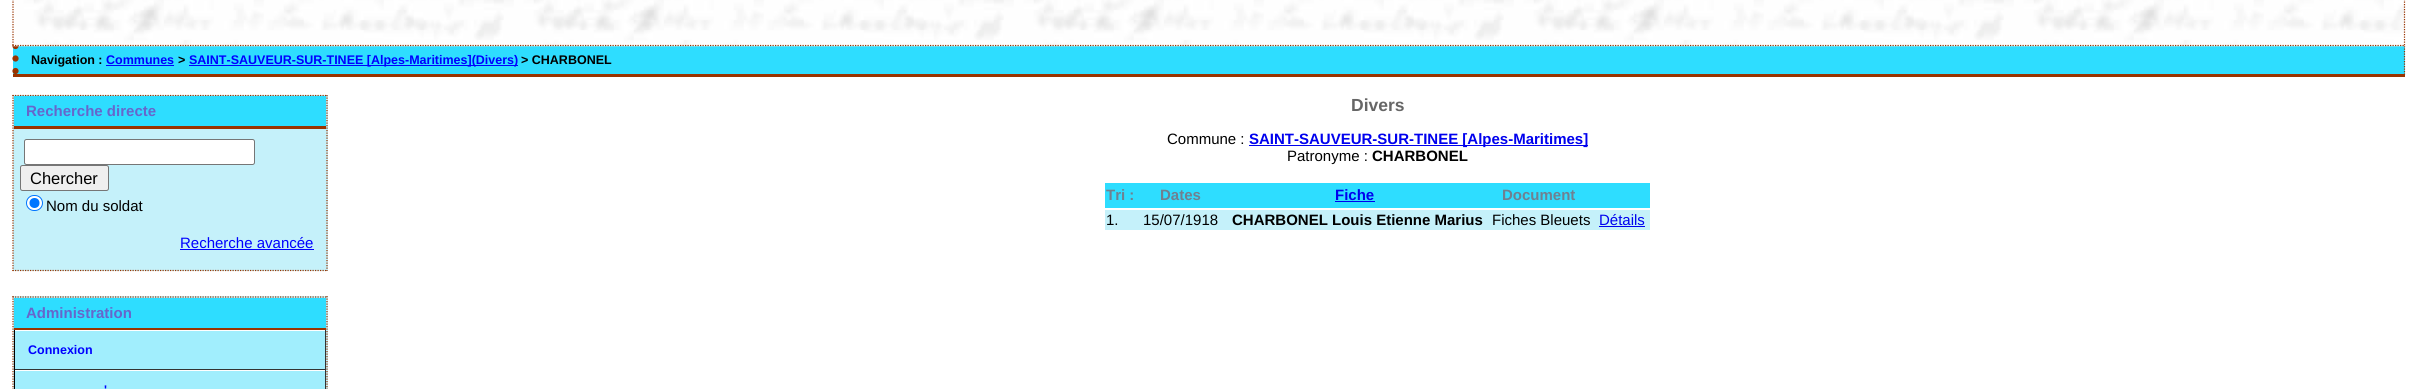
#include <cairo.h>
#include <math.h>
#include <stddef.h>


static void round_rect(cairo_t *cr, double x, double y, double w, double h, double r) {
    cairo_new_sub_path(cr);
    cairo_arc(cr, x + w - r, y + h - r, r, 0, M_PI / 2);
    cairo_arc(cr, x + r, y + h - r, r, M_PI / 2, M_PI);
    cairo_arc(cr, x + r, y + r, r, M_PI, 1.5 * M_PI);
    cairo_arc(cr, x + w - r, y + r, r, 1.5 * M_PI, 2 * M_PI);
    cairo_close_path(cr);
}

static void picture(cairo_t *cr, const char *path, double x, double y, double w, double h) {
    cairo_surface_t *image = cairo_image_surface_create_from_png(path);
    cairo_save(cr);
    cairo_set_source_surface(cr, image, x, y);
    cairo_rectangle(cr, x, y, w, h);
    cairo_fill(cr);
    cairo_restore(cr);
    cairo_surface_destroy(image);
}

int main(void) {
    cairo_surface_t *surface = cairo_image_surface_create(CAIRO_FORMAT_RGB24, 2417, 389);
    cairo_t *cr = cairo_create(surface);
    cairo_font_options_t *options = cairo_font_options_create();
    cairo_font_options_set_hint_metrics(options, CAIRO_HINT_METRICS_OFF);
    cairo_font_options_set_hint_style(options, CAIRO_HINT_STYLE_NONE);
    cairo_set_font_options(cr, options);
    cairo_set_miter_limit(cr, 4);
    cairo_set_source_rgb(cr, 1, 1, 1);
    cairo_paint(cr);
    cairo_set_source_rgb(cr, 0.18, 0.867, 1);
    cairo_rectangle(cr, 13, 46, 2392, 28);
    cairo_fill(cr);
    cairo_new_path(cr);
    cairo_move_to(cr, 2404.5, 46);
    cairo_line_to(cr, 2404.5, 76);
    cairo_set_source_rgb(cr, 0.6, 0.2, 0);
    cairo_set_line_width(cr, 1.2);
    cairo_set_dash(cr, (double[]){1.25, 1.25}, 2, 0);
    cairo_stroke(cr);
    cairo_rectangle(cr, 13, 74, 2392, 3);
    cairo_fill(cr);
    cairo_new_path(cr);
    cairo_move_to(cr, 15.5, 46);
    cairo_line_to(cr, 15.5, 76);
    cairo_set_line_width(cr, 6.2);
    cairo_set_line_cap(cr, CAIRO_LINE_CAP_ROUND);
    cairo_set_dash(cr, (double[]){0, 12.5}, 2, 0);
    cairo_stroke(cr);
    picture(cr, "img1.png", 12, 0, 2393, 47);
    cairo_new_path(cr);
    cairo_move_to(cr, 2404.5, -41);
    cairo_line_to(cr, 2404.5, 46);
    cairo_set_line_width(cr, 1.2);
    cairo_set_line_cap(cr, CAIRO_LINE_CAP_BUTT);
    cairo_set_dash(cr, (double[]){1.25, 1.25}, 2, 0);
    cairo_stroke(cr);
    cairo_new_path(cr);
    cairo_move_to(cr, 12.5, 45.5);
    cairo_line_to(cr, 2405, 45.5);
    cairo_stroke(cr);
    cairo_new_path(cr);
    cairo_move_to(cr, 13, -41);
    cairo_line_to(cr, 13, 46);
    cairo_stroke(cr);
    cairo_select_font_face(cr, "Liberation Sans", CAIRO_FONT_SLANT_NORMAL, CAIRO_FONT_WEIGHT_BOLD);
    cairo_set_font_size(cr, 12.5);
    cairo_set_source_rgb(cr, 0, 0, 0);
    cairo_move_to(cr, 31, 64);
    cairo_show_text(cr, "Navigation :");
    cairo_set_source_rgb(cr, 0, 0, 1);
    cairo_move_to(cr, 106, 64);
    cairo_show_text(cr, "Communes");
    cairo_rectangle(cr, 106, 65, 68, 1);
    cairo_fill(cr);
    cairo_set_source_rgb(cr, 0, 0, 0);
    cairo_move_to(cr, 178, 64);
    cairo_show_text(cr, ">");
    cairo_set_source_rgb(cr, 0, 0, 1);
    cairo_rectangle(cr, 189, 65, 329, 1);
    cairo_fill(cr);
    cairo_move_to(cr, 189, 64);
    cairo_show_text(cr, "SAINT-SAUVEUR-SUR-TINEE [Alpes-Maritimes](Divers)");
    cairo_set_source_rgb(cr, 0, 0, 0);
    cairo_move_to(cr, 521, 64);
    cairo_show_text(cr, "> CHARBONEL");
    cairo_set_source_rgb(cr, 0.773, 0.945, 0.98);
    cairo_rectangle(cr, 13, 95, 315, 176);
    cairo_fill(cr);
    cairo_new_path(cr);
    cairo_move_to(cr, 12.5, 95.5);
    cairo_line_to(cr, 327.5, 95.5);
    cairo_set_source_rgb(cr, 0.6, 0.2, 0);
    cairo_stroke(cr);
    cairo_new_path(cr);
    cairo_move_to(cr, 327, 95);
    cairo_line_to(cr, 327, 271);
    cairo_stroke(cr);
    cairo_new_path(cr);
    cairo_move_to(cr, 12.5, 270.5);
    cairo_line_to(cr, 327.5, 270.5);
    cairo_stroke(cr);
    cairo_new_path(cr);
    cairo_move_to(cr, 13, 95);
    cairo_line_to(cr, 13, 271);
    cairo_stroke(cr);
    cairo_set_source_rgb(cr, 0.18, 0.867, 1);
    cairo_rectangle(cr, 14, 96, 312, 30);
    cairo_fill(cr);
    cairo_set_source_rgb(cr, 0.6, 0.2, 0);
    cairo_rectangle(cr, 14, 126, 312, 3);
    cairo_fill(cr);
    cairo_set_font_size(cr, 15);
    cairo_set_source_rgb(cr, 0.4, 0.4, 0.8);
    cairo_move_to(cr, 26, 116);
    cairo_show_text(cr, "Recherche directe");
    cairo_set_source_rgb(cr, 1, 1, 1);
    round_rect(cr, 24.5, 139.5, 230, 25, 2);
    cairo_fill_preserve(cr);
    cairo_set_source_rgb(cr, 0.463, 0.463, 0.463);
    cairo_set_line_width(cr, 1);
    cairo_set_dash(cr, NULL, 0, 0);
    cairo_stroke(cr);
    cairo_set_source_rgb(cr, 0.937, 0.937, 0.937);
    round_rect(cr, 20.5, 165.5, 88, 25, 2);
    cairo_fill_preserve(cr);
    cairo_set_source_rgb(cr, 0.463, 0.463, 0.463);
    cairo_stroke(cr);
    cairo_select_font_face(cr, "Liberation Sans", CAIRO_FONT_SLANT_NORMAL, CAIRO_FONT_WEIGHT_NORMAL);
    cairo_set_font_size(cr, 16.5);
    cairo_set_source_rgb(cr, 0, 0, 0);
    cairo_move_to(cr, 30, 184);
    cairo_show_text(cr, "Chercher");
    cairo_set_source_rgb(cr, 1, 1, 1);
    round_rect(cr, 26.5, 195.5, 16, 15, 7.5);
    cairo_fill_preserve(cr);
    cairo_set_source_rgb(cr, 0, 0.459, 1);
    cairo_stroke(cr);
    cairo_arc(cr, 34.5, 203, 5, 0, 2 * M_PI);
    cairo_fill(cr);
    cairo_set_font_size(cr, 15);
    cairo_set_source_rgb(cr, 0, 0, 0);
    cairo_move_to(cr, 46, 211);
    cairo_show_text(cr, "Nom du soldat");
    cairo_set_source_rgb(cr, 0, 0, 1);
    cairo_move_to(cr, 180, 248);
    cairo_show_text(cr, "Recherche avancée");
    cairo_rectangle(cr, 180, 249, 134, 1);
    cairo_fill(cr);
    cairo_set_source_rgb(cr, 0.773, 0.945, 0.98);
    cairo_rectangle(cr, 13, 296, 315, 93);
    cairo_fill(cr);
    cairo_new_path(cr);
    cairo_move_to(cr, 12.5, 297);
    cairo_line_to(cr, 327.5, 297);
    cairo_set_source_rgb(cr, 0.6, 0.2, 0);
    cairo_set_line_width(cr, 1.2);
    cairo_set_dash(cr, (double[]){1.25, 1.25}, 2, 0);
    cairo_stroke(cr);
    cairo_new_path(cr);
    cairo_move_to(cr, 327, 296);
    cairo_line_to(cr, 327, 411);
    cairo_stroke(cr);
    cairo_new_path(cr);
    cairo_move_to(cr, 13, 296);
    cairo_line_to(cr, 13, 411);
    cairo_stroke(cr);
    cairo_set_source_rgb(cr, 0.18, 0.867, 1);
    cairo_rectangle(cr, 14, 298, 312, 30);
    cairo_fill(cr);
    cairo_set_source_rgb(cr, 0.6, 0.2, 0);
    cairo_rectangle(cr, 14, 328, 312, 2);
    cairo_fill(cr);
    cairo_select_font_face(cr, "Liberation Sans", CAIRO_FONT_SLANT_NORMAL, CAIRO_FONT_WEIGHT_BOLD);
    cairo_set_source_rgb(cr, 0.4, 0.4, 0.8);
    cairo_move_to(cr, 26, 318);
    cairo_show_text(cr, "Administration");
    cairo_set_source_rgb(cr, 0.631, 0.933, 0.992);
    cairo_rectangle(cr, 15, 331, 310, 38);
    cairo_fill(cr);
    cairo_set_source_rgb(cr, 1, 1, 1);
    cairo_rectangle(cr, 14, 330, 312, 1);
    cairo_fill(cr);
    cairo_set_source_rgb(cr, 0.2, 0.2, 0.2);
    cairo_rectangle(cr, 325, 330, 1, 40);
    cairo_fill(cr);
    cairo_rectangle(cr, 14, 369, 312, 1);
    cairo_fill(cr);
    cairo_set_source_rgb(cr, 0, 0, 0);
    cairo_rectangle(cr, 14, 330, 1, 40);
    cairo_fill(cr);
    cairo_set_font_size(cr, 12.5);
    cairo_set_source_rgb(cr, 0, 0, 1);
    cairo_move_to(cr, 28, 354);
    cairo_show_text(cr, "Connexion");
    cairo_set_source_rgb(cr, 0.631, 0.933, 0.992);
    cairo_rectangle(cr, 15, 371, 310, 18);
    cairo_fill(cr);
    cairo_set_source_rgb(cr, 1, 1, 1);
    cairo_rectangle(cr, 14, 370, 312, 1);
    cairo_fill(cr);
    cairo_set_source_rgb(cr, 0.2, 0.2, 0.2);
    cairo_rectangle(cr, 325, 370, 1, 19);
    cairo_fill(cr);
    cairo_set_source_rgb(cr, 0, 0, 0);
    cairo_rectangle(cr, 14, 370, 1, 19);
    cairo_fill(cr);
    cairo_set_source_rgb(cr, 0, 0, 1);
    cairo_move_to(cr, 104, 394);
    cairo_show_text(cr, "'");
    cairo_set_font_size(cr, 17.5);
    cairo_set_source_rgb(cr, 0.4, 0.4, 0.4);
    cairo_move_to(cr, 1351, 111);
    cairo_show_text(cr, "Divers");
    cairo_select_font_face(cr, "Liberation Sans", CAIRO_FONT_SLANT_NORMAL, CAIRO_FONT_WEIGHT_NORMAL);
    cairo_set_font_size(cr, 15);
    cairo_set_source_rgb(cr, 0, 0, 0);
    cairo_move_to(cr, 1167, 144);
    cairo_show_text(cr, "Commune :");
    cairo_set_source_rgb(cr, 0, 0, 0.933);
    cairo_rectangle(cr, 1249, 145, 339, 1);
    cairo_fill(cr);
    cairo_select_font_face(cr, "Liberation Sans", CAIRO_FONT_SLANT_NORMAL, CAIRO_FONT_WEIGHT_BOLD);
    cairo_move_to(cr, 1249, 144);
    cairo_show_text(cr, "SAINT-SAUVEUR-SUR-TINEE [Alpes-Maritimes]");
    cairo_select_font_face(cr, "Liberation Sans", CAIRO_FONT_SLANT_NORMAL, CAIRO_FONT_WEIGHT_NORMAL);
    cairo_set_source_rgb(cr, 0, 0, 0);
    cairo_move_to(cr, 1287, 161);
    cairo_show_text(cr, "Patronyme :");
    cairo_select_font_face(cr, "Liberation Sans", CAIRO_FONT_SLANT_NORMAL, CAIRO_FONT_WEIGHT_BOLD);
    cairo_move_to(cr, 1372, 161);
    cairo_show_text(cr, "CHARBONEL");
    cairo_set_source_rgb(cr, 0.18, 0.867, 1);
    cairo_rectangle(cr, 1105, 183, 545, 25);
    cairo_fill(cr);
    cairo_set_source_rgb(cr, 0.439, 0.502, 0.565);
    cairo_move_to(cr, 1106, 200);
    cairo_show_text(cr, "Tri :");
    cairo_move_to(cr, 1160, 200);
    cairo_show_text(cr, "Dates");
    cairo_set_source_rgb(cr, 0, 0, 0.933);
    cairo_move_to(cr, 1335, 200);
    cairo_show_text(cr, "Fiche");
    cairo_rectangle(cr, 1335, 201, 40, 1);
    cairo_fill(cr);
    cairo_set_source_rgb(cr, 0.439, 0.502, 0.565);
    cairo_move_to(cr, 1502, 200);
    cairo_show_text(cr, "Document");
    cairo_set_source_rgb(cr, 0.773, 0.945, 0.98);
    cairo_rectangle(cr, 1105, 210, 545, 20);
    cairo_fill(cr);
    cairo_select_font_face(cr, "Liberation Sans", CAIRO_FONT_SLANT_NORMAL, CAIRO_FONT_WEIGHT_NORMAL);
    cairo_set_source_rgb(cr, 0, 0, 0);
    cairo_move_to(cr, 1106, 225);
    cairo_show_text(cr, "1.");
    cairo_move_to(cr, 1143, 225);
    cairo_show_text(cr, "15/07/1918");
    cairo_select_font_face(cr, "Liberation Sans", CAIRO_FONT_SLANT_NORMAL, CAIRO_FONT_WEIGHT_BOLD);
    cairo_move_to(cr, 1232, 225);
    cairo_show_text(cr, "CHARBONEL Louis Etienne Marius");
    cairo_select_font_face(cr, "Liberation Sans", CAIRO_FONT_SLANT_NORMAL, CAIRO_FONT_WEIGHT_NORMAL);
    cairo_move_to(cr, 1492, 225);
    cairo_show_text(cr, "Fiches Bleuets");
    cairo_set_source_rgb(cr, 0, 0, 0.933);
    cairo_move_to(cr, 1599, 225);
    cairo_show_text(cr, "Détails");
    cairo_rectangle(cr, 1599, 226, 46, 1);
    cairo_fill(cr);
    cairo_surface_write_to_png(surface, "page.png");
    cairo_font_options_destroy(options);
    cairo_destroy(cr);
    cairo_surface_destroy(surface);
    return 0;
}
